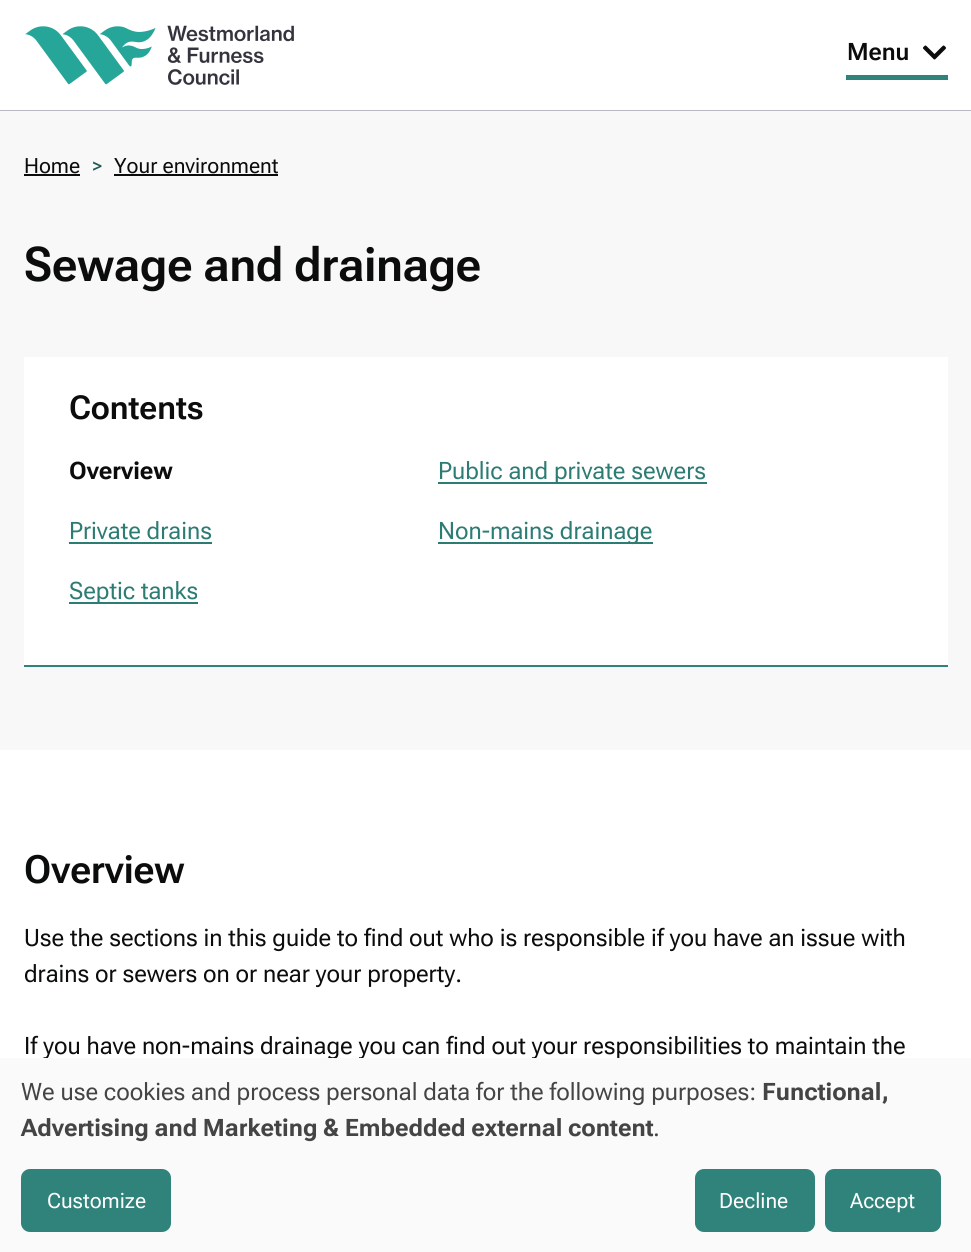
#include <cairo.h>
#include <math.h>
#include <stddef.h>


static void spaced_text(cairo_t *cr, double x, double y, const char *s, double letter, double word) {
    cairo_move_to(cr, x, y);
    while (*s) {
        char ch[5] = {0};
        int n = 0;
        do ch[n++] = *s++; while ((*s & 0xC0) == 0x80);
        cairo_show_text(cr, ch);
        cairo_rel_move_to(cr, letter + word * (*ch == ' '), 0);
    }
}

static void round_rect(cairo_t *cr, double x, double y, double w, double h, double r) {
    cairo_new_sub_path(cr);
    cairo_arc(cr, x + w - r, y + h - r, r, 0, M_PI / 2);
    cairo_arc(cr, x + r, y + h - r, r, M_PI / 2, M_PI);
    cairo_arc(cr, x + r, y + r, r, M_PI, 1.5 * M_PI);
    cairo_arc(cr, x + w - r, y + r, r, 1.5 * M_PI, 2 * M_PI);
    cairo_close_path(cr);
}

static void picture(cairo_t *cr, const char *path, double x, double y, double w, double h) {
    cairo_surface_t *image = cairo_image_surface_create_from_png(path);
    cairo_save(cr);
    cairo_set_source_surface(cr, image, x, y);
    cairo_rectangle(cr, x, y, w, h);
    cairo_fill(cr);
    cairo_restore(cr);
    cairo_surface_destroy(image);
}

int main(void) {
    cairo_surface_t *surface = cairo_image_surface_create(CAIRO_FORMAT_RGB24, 971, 1252);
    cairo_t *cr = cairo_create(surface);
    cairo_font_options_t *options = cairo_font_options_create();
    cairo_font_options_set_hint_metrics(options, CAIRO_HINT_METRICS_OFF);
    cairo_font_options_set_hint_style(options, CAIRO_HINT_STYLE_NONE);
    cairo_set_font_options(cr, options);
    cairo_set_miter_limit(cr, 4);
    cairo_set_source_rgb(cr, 1, 1, 1);
    cairo_paint(cr);
    picture(cr, "img1.png", 25, 25, 269, 60);
    cairo_set_source_rgb(cr, 0.184, 0.514, 0.482);
    cairo_rectangle(cr, 846, 75, 102, 5);
    cairo_fill(cr);
    cairo_select_font_face(cr, "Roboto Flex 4 SemiBold", CAIRO_FONT_SLANT_NORMAL, CAIRO_FONT_WEIGHT_NORMAL);
    cairo_set_font_size(cr, 24);
    cairo_set_source_rgb(cr, 0.043, 0.047, 0.047);
    cairo_move_to(cr, 847, 60);
    cairo_show_text(cr, "Menu");
    picture(cr, "img2.png", 923, 45, 23, 15);
    cairo_set_source_rgb(cr, 0.722, 0.722, 0.761);
    cairo_rectangle(cr, 0, 110, 971, 1);
    cairo_fill(cr);
    cairo_set_source_rgb(cr, 0.969, 0.969, 0.973);
    cairo_rectangle(cr, 0, 111, 971, 639);
    cairo_fill(cr);
    cairo_select_font_face(cr, "Roboto Flex", CAIRO_FONT_SLANT_NORMAL, CAIRO_FONT_WEIGHT_NORMAL);
    cairo_set_font_size(cr, 21);
    cairo_set_source_rgb(cr, 0.043, 0.047, 0.047);
    cairo_move_to(cr, 24, 173);
    cairo_show_text(cr, "Home");
    cairo_rectangle(cr, 24, 174, 56, 2);
    cairo_fill(cr);
    cairo_set_source_rgb(cr, 0.125, 0.357, 0.337);
    cairo_move_to(cr, 92, 173);
    cairo_show_text(cr, ">");
    cairo_set_source_rgb(cr, 0.043, 0.047, 0.047);
    cairo_move_to(cr, 114, 173);
    cairo_show_text(cr, "Your environment");
    cairo_rectangle(cr, 114, 174, 164, 2);
    cairo_fill(cr);
    cairo_select_font_face(cr, "Roboto Flex SemiBold", CAIRO_FONT_SLANT_NORMAL, CAIRO_FONT_WEIGHT_NORMAL);
    cairo_set_font_size(cr, 48);
    cairo_move_to(cr, 24, 281);
    cairo_show_text(cr, "Sewage and drainage");
    cairo_set_source_rgb(cr, 1, 1, 1);
    cairo_rectangle(cr, 24, 357, 924, 308);
    cairo_fill(cr);
    cairo_set_source_rgb(cr, 0.184, 0.514, 0.482);
    cairo_rectangle(cr, 24, 665, 924, 2);
    cairo_fill(cr);
    cairo_select_font_face(cr, "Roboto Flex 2 SemiBold", CAIRO_FONT_SLANT_NORMAL, CAIRO_FONT_WEIGHT_NORMAL);
    cairo_set_font_size(cr, 33);
    cairo_set_source_rgb(cr, 0.043, 0.047, 0.047);
    cairo_move_to(cr, 69, 419);
    cairo_show_text(cr, "Contents");
    cairo_select_font_face(cr, "Roboto Flex", CAIRO_FONT_SLANT_NORMAL, CAIRO_FONT_WEIGHT_BOLD);
    cairo_set_font_size(cr, 24);
    cairo_move_to(cr, 69, 479);
    cairo_show_text(cr, "Overview");
    cairo_set_source_rgb(cr, 0.176, 0.486, 0.455);
    cairo_rectangle(cr, 438, 482, 269, 2);
    cairo_fill(cr);
    cairo_select_font_face(cr, "Roboto Flex 2", CAIRO_FONT_SLANT_NORMAL, CAIRO_FONT_WEIGHT_NORMAL);
    cairo_move_to(cr, 438, 479);
    cairo_show_text(cr, "Public and private sewers");
    cairo_move_to(cr, 69, 539);
    cairo_show_text(cr, "Private drains");
    cairo_rectangle(cr, 69, 542, 143, 2);
    cairo_fill(cr);
    cairo_rectangle(cr, 438, 542, 215, 2);
    cairo_fill(cr);
    cairo_move_to(cr, 438, 539);
    cairo_show_text(cr, "Non-mains drainage");
    cairo_rectangle(cr, 69, 602, 129, 2);
    cairo_fill(cr);
    cairo_move_to(cr, 69, 599);
    cairo_show_text(cr, "Septic tanks");
    cairo_select_font_face(cr, "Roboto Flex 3 SemiBold", CAIRO_FONT_SLANT_NORMAL, CAIRO_FONT_WEIGHT_NORMAL);
    cairo_set_font_size(cr, 39);
    cairo_set_source_rgb(cr, 0.043, 0.047, 0.047);
    cairo_move_to(cr, 24, 883);
    cairo_show_text(cr, "Overview");
    cairo_select_font_face(cr, "Roboto Flex 2", CAIRO_FONT_SLANT_NORMAL, CAIRO_FONT_WEIGHT_NORMAL);
    cairo_set_font_size(cr, 24);
    cairo_move_to(cr, 24, 946);
    cairo_show_text(cr, "Use the sections in this guide to find out who is responsible if you have an issue with");
    cairo_move_to(cr, 24, 982);
    cairo_show_text(cr, "drains or sewers on or near your property.");
    cairo_move_to(cr, 24, 1054);
    cairo_show_text(cr, "If you have non-mains drainage you can find out your responsibilities to maintain the");
    cairo_set_source_rgb(cr, 0.98, 0.98, 0.98);
    cairo_rectangle(cr, 0, 1058, 971, 194);
    cairo_fill(cr);
    cairo_set_source_rgb(cr, 0.267, 0.267, 0.267);
    cairo_move_to(cr, 21, 1100);
    cairo_show_text(cr, "We use cookies and process personal data for the following purposes:");
    cairo_select_font_face(cr, "Roboto Flex", CAIRO_FONT_SLANT_NORMAL, CAIRO_FONT_WEIGHT_BOLD);
    cairo_move_to(cr, 762, 1100);
    cairo_show_text(cr, "Functional,");
    spaced_text(cr, 21, 1136, "Advertising and Marketing & Embedded external content", 0, -0.25);
    cairo_select_font_face(cr, "Roboto Flex 2", CAIRO_FONT_SLANT_NORMAL, CAIRO_FONT_WEIGHT_NORMAL);
    cairo_move_to(cr, 653, 1136);
    cairo_show_text(cr, ".");
    cairo_set_source_rgb(cr, 0.184, 0.514, 0.482);
    round_rect(cr, 21, 1169, 150, 63, 9);
    cairo_fill(cr);
    cairo_select_font_face(cr, "Roboto Flex", CAIRO_FONT_SLANT_NORMAL, CAIRO_FONT_WEIGHT_NORMAL);
    cairo_set_font_size(cr, 21);
    cairo_set_source_rgb(cr, 1, 1, 1);
    cairo_move_to(cr, 47, 1208);
    cairo_show_text(cr, "Customize");
    cairo_set_source_rgb(cr, 0.184, 0.514, 0.482);
    round_rect(cr, 695, 1169, 120, 63, 9);
    cairo_fill(cr);
    cairo_set_source_rgb(cr, 1, 1, 1);
    cairo_move_to(cr, 719, 1208);
    cairo_show_text(cr, "Decline");
    cairo_set_source_rgb(cr, 0.184, 0.514, 0.482);
    round_rect(cr, 825, 1169, 116, 63, 9);
    cairo_fill(cr);
    cairo_set_source_rgb(cr, 1, 1, 1);
    cairo_move_to(cr, 850, 1208);
    cairo_show_text(cr, "Accept");
    cairo_surface_write_to_png(surface, "page.png");
    cairo_font_options_destroy(options);
    cairo_destroy(cr);
    cairo_surface_destroy(surface);
    return 0;
}
